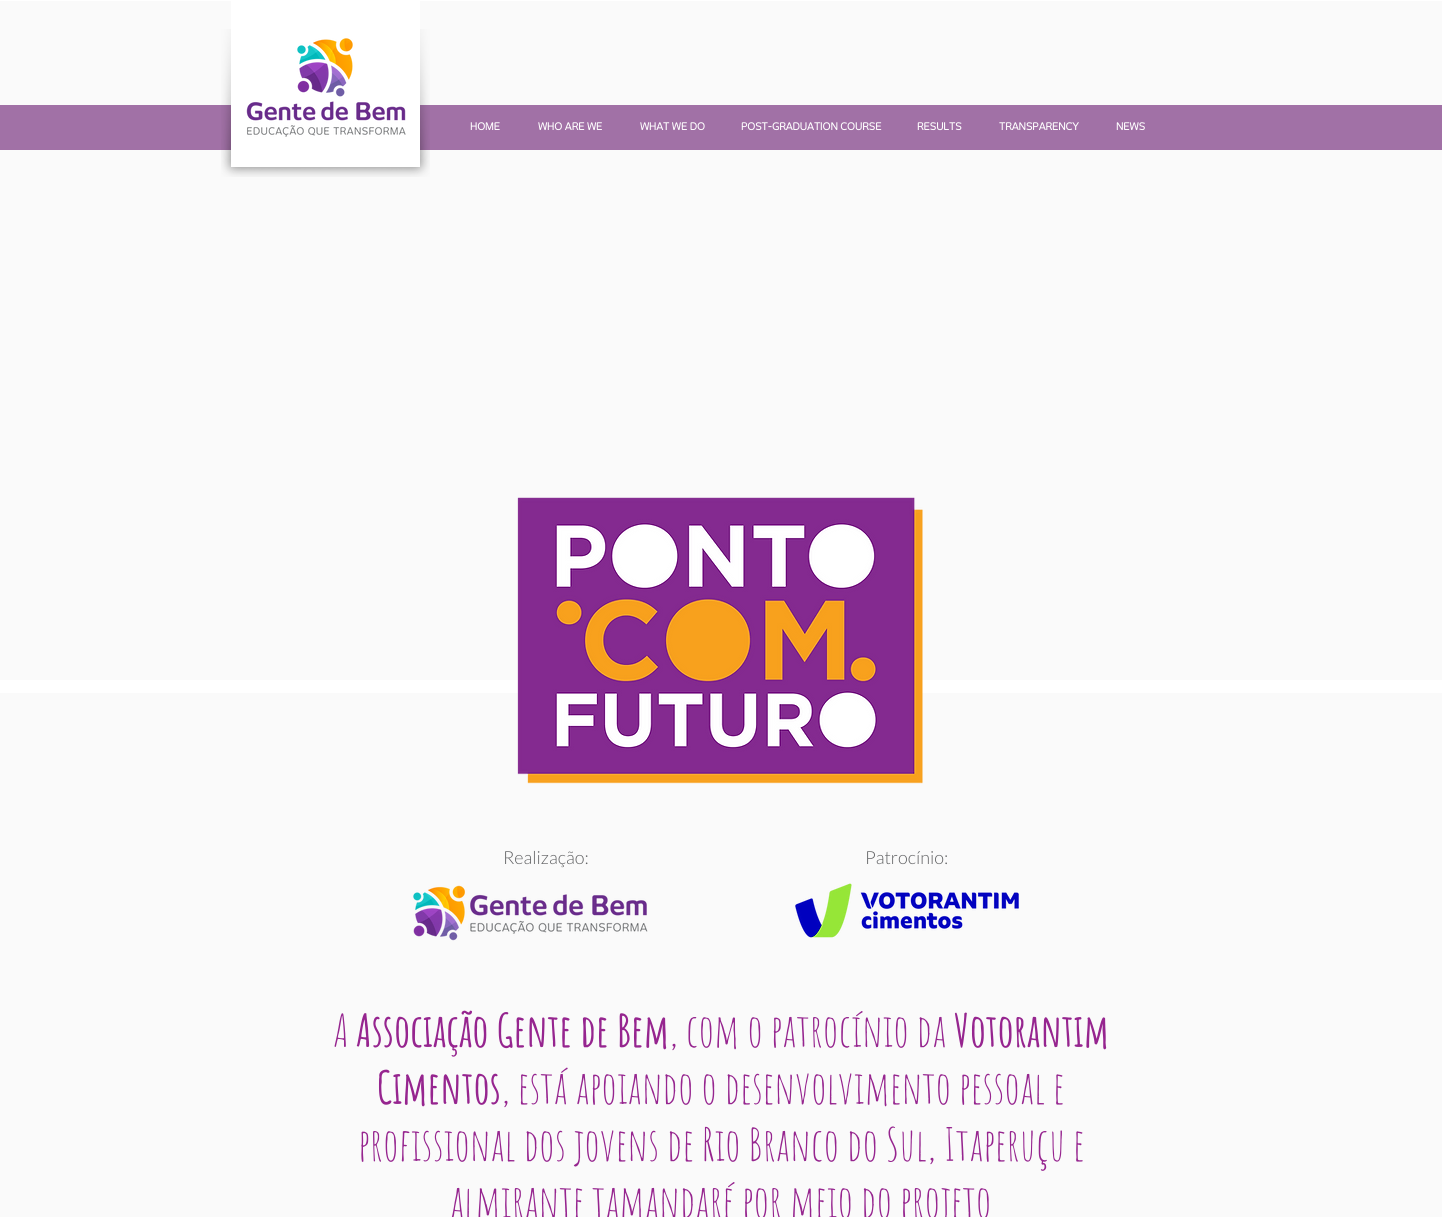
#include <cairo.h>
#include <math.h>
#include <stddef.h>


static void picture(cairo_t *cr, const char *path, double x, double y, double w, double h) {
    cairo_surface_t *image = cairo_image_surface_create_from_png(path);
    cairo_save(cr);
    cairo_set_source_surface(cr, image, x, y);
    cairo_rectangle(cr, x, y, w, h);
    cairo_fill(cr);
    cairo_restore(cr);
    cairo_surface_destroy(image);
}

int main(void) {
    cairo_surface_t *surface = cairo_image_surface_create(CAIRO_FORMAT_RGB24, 1442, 1217);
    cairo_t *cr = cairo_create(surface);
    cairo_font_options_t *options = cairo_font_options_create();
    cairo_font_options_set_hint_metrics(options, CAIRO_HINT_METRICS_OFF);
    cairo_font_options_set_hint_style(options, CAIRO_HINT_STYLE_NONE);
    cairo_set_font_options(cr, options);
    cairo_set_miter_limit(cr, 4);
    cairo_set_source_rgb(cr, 1, 1, 1);
    cairo_paint(cr);
    cairo_set_source_rgb(cr, 0.98, 0.98, 0.98);
    cairo_rectangle(cr, 0, 1, 1442, 679);
    cairo_fill(cr);
    cairo_set_source_rgb(cr, 0.631, 0.443, 0.651);
    cairo_rectangle(cr, 0, 105, 1442, 45);
    cairo_fill(cr);
    picture(cr, "img1.png", 221, 29, 45, 148);
    picture(cr, "img3.png", 385, 29, 45, 148);
    cairo_set_source_rgb(cr, 1, 1, 1);
    cairo_rectangle(cr, 231, 1, 189, 166);
    cairo_fill(cr);
    picture(cr, "img2.png", 246, 38, 160, 99);
    picture(cr, "img4.png", 266, 167, 119, 10);
    cairo_select_font_face(cr, "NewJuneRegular", CAIRO_FONT_SLANT_NORMAL, CAIRO_FONT_WEIGHT_BOLD);
    cairo_set_font_size(cr, 10);
    cairo_move_to(cr, 470, 130);
    cairo_show_text(cr, "HOME");
    cairo_move_to(cr, 538, 130);
    cairo_show_text(cr, "WHO ARE WE");
    cairo_move_to(cr, 640, 130);
    cairo_show_text(cr, "WHAT WE DO");
    cairo_move_to(cr, 741, 130);
    cairo_show_text(cr, "POST-GRADUATION COURSE");
    cairo_move_to(cr, 917, 130);
    cairo_show_text(cr, "RESULTS");
    cairo_move_to(cr, 999, 130);
    cairo_show_text(cr, "TRANSPARENCY");
    cairo_move_to(cr, 1116, 130);
    cairo_show_text(cr, "NEWS");
    cairo_set_source_rgb(cr, 0.98, 0.98, 0.98);
    cairo_rectangle(cr, 0, 693, 1442, 524);
    cairo_fill(cr);
    picture(cr, "img5.png", 517, 497, 406, 287);
    cairo_select_font_face(cr, "Lato Light", CAIRO_FONT_SLANT_NORMAL, CAIRO_FONT_WEIGHT_NORMAL);
    cairo_set_font_size(cr, 18);
    cairo_set_source_rgb(cr, 0.388, 0.392, 0.4);
    cairo_move_to(cr, 503, 864);
    cairo_show_text(cr, "Realização:");
    cairo_move_to(cr, 865, 864);
    cairo_show_text(cr, "Patrocínio:");
    picture(cr, "img6.png", 413, 885, 235, 56);
    picture(cr, "img7.png", 795, 883, 224, 55);
    cairo_select_font_face(cr, "Amatic SC", CAIRO_FONT_SLANT_NORMAL, CAIRO_FONT_WEIGHT_NORMAL);
    cairo_set_font_size(cr, 45);
    cairo_set_source_rgb(cr, 0.588, 0.145, 0.561);
    cairo_move_to(cr, 333, 1047);
    cairo_show_text(cr, "A");
    cairo_select_font_face(cr, "Amatic SC", CAIRO_FONT_SLANT_NORMAL, CAIRO_FONT_WEIGHT_BOLD);
    cairo_move_to(cr, 356, 1047);
    cairo_show_text(cr, "Associação Gente de Bem");
    cairo_select_font_face(cr, "Amatic SC", CAIRO_FONT_SLANT_NORMAL, CAIRO_FONT_WEIGHT_NORMAL);
    cairo_move_to(cr, 669, 1047);
    cairo_show_text(cr, ", com o patrocínio da");
    cairo_select_font_face(cr, "Amatic SC", CAIRO_FONT_SLANT_NORMAL, CAIRO_FONT_WEIGHT_BOLD);
    cairo_move_to(cr, 954, 1047);
    cairo_show_text(cr, "Votorantim");
    cairo_move_to(cr, 377, 1104);
    cairo_show_text(cr, "Cimentos");
    cairo_select_font_face(cr, "Amatic SC", CAIRO_FONT_SLANT_NORMAL, CAIRO_FONT_WEIGHT_NORMAL);
    cairo_move_to(cr, 501, 1104);
    cairo_show_text(cr, ", está apoiando o desenvolvimento pessoal e");
    cairo_move_to(cr, 358, 1161);
    cairo_show_text(cr, "profissional dos jovens de Rio Branco do Sul, Itaperuçu e");
    cairo_move_to(cr, 450, 1218);
    cairo_show_text(cr, "almirante tamandaré por meio do projeto");
    cairo_surface_write_to_png(surface, "page.png");
    cairo_font_options_destroy(options);
    cairo_destroy(cr);
    cairo_surface_destroy(surface);
    return 0;
}
